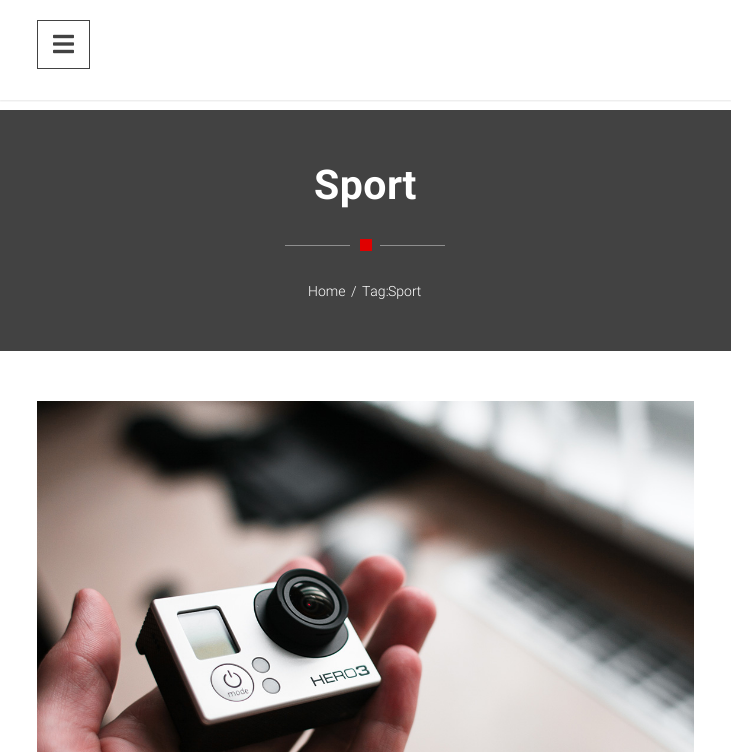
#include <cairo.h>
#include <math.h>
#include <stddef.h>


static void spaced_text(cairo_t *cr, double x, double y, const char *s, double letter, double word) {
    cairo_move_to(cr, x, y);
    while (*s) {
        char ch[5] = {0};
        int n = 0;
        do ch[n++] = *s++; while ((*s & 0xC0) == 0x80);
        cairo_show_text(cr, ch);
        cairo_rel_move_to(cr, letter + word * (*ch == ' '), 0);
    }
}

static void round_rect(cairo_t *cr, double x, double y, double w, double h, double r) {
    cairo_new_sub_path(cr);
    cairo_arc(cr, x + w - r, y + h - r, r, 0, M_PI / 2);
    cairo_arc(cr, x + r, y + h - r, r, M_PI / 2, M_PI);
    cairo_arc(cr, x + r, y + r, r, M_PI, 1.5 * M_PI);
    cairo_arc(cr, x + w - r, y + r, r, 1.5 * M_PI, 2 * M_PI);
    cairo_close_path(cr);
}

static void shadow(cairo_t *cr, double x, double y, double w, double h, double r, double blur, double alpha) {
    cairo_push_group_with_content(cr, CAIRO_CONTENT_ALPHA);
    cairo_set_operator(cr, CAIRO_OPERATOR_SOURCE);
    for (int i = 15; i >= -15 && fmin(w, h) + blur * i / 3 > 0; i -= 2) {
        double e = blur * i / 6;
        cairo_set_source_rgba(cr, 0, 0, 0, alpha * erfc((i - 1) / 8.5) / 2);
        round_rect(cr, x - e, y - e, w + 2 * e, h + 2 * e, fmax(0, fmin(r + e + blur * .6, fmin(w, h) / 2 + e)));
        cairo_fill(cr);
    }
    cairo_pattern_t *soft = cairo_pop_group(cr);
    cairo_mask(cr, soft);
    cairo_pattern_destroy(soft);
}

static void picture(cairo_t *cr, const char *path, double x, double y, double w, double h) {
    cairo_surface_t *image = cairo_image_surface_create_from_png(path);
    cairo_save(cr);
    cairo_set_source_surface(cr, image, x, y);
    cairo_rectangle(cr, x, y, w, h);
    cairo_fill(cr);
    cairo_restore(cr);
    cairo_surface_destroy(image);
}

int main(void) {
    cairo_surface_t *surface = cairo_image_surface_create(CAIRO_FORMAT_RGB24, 731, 752);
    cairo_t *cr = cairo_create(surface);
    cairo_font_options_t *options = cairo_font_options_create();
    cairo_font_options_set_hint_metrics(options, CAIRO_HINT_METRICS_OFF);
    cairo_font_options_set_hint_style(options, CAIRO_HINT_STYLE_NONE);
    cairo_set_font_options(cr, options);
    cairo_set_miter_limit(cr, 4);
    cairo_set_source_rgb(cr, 1, 1, 1);
    cairo_paint(cr);
    cairo_save(cr);
    cairo_rectangle(cr, 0, 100, 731, 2);
    cairo_clip(cr);
    cairo_set_source_rgb(cr, 0.631, 0.631, 0.631);
    shadow(cr, 0, 1, 731, 100, 0, 1, 0.25);
    cairo_restore(cr);
    cairo_rectangle(cr, 37.5, 20.5, 52, 48);
    cairo_set_source_rgb(cr, 0.259, 0.259, 0.259);
    cairo_set_line_width(cr, 1);
    cairo_stroke(cr);
    picture(cr, "img1.png", 53, 34, 21, 20);
    cairo_rectangle(cr, 0, 110, 731, 241);
    cairo_fill(cr);
    cairo_select_font_face(cr, "Roboto", CAIRO_FONT_SLANT_NORMAL, CAIRO_FONT_WEIGHT_BOLD);
    cairo_set_font_size(cr, 41);
    cairo_set_source_rgb(cr, 1, 1, 1);
    spaced_text(cr, 314, 199, "Sport", 0.5, 0);
    cairo_set_source_rgb(cr, 0.557, 0.557, 0.557);
    cairo_rectangle(cr, 285, 245, 65, 1);
    cairo_fill(cr);
    cairo_set_source_rgb(cr, 0.878, 0, 0);
    cairo_rectangle(cr, 360, 239, 12, 12);
    cairo_fill(cr);
    cairo_set_source_rgb(cr, 0.557, 0.557, 0.557);
    cairo_rectangle(cr, 380, 245, 65, 1);
    cairo_fill(cr);
    cairo_select_font_face(cr, "Roboto Light", CAIRO_FONT_SLANT_NORMAL, CAIRO_FONT_WEIGHT_NORMAL);
    cairo_set_font_size(cr, 14);
    cairo_set_source_rgb(cr, 1, 1, 1);
    cairo_move_to(cr, 308, 296);
    cairo_show_text(cr, "Home");
    cairo_move_to(cr, 351, 296);
    cairo_show_text(cr, "/");
    cairo_move_to(cr, 362, 296);
    cairo_show_text(cr, "Tag:");
    cairo_move_to(cr, 388, 296);
    cairo_show_text(cr, "Sport");
    picture(cr, "img2.png", 37, 401, 657, 351);
    cairo_surface_write_to_png(surface, "page.png");
    cairo_font_options_destroy(options);
    cairo_destroy(cr);
    cairo_surface_destroy(surface);
    return 0;
}
